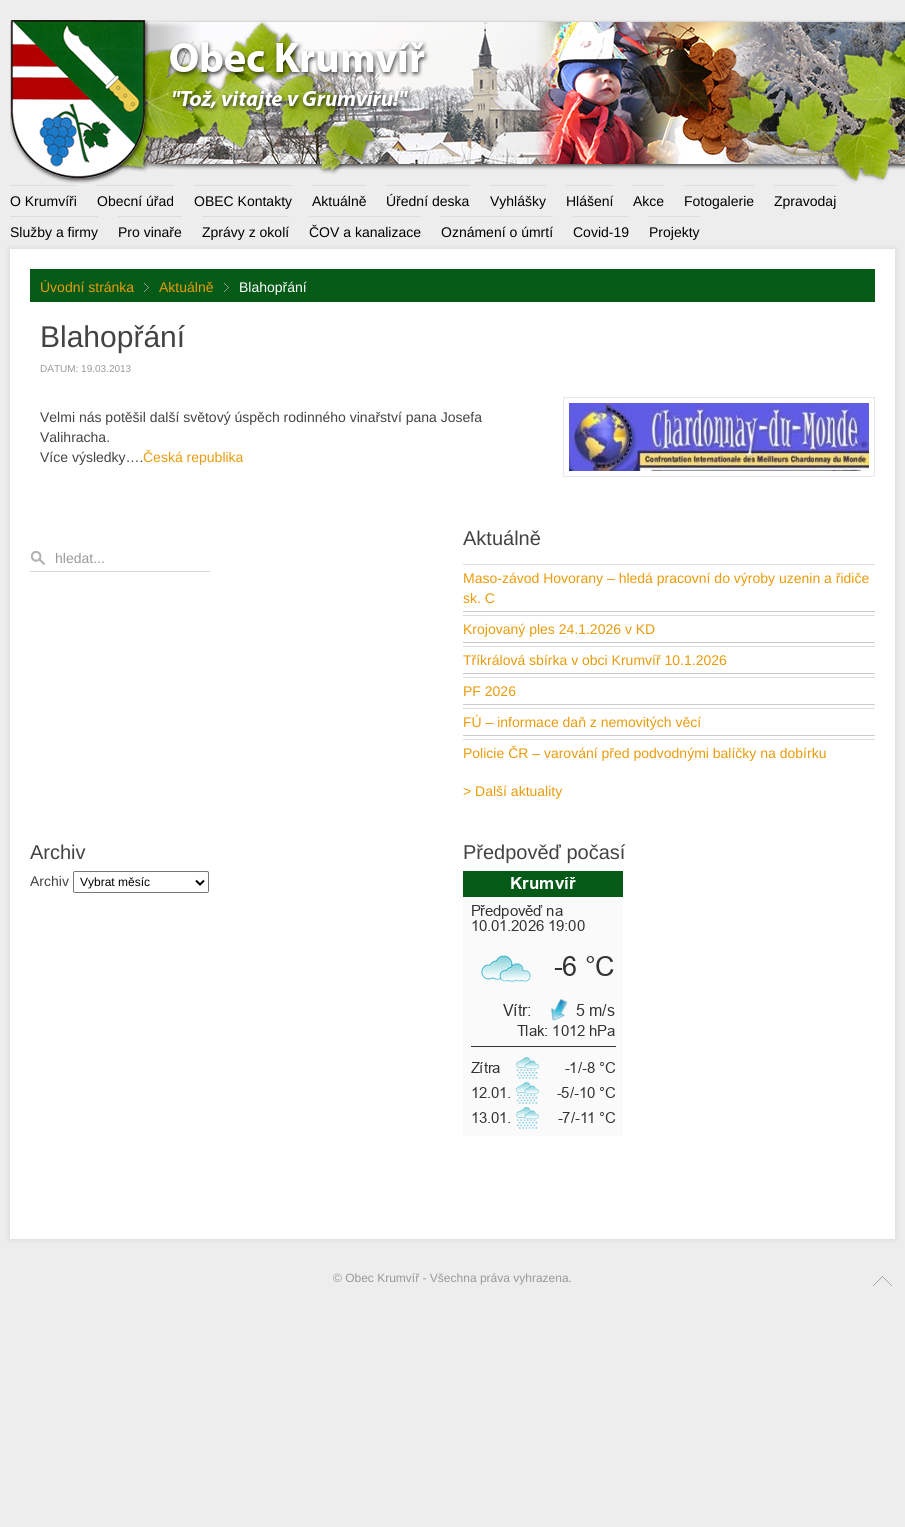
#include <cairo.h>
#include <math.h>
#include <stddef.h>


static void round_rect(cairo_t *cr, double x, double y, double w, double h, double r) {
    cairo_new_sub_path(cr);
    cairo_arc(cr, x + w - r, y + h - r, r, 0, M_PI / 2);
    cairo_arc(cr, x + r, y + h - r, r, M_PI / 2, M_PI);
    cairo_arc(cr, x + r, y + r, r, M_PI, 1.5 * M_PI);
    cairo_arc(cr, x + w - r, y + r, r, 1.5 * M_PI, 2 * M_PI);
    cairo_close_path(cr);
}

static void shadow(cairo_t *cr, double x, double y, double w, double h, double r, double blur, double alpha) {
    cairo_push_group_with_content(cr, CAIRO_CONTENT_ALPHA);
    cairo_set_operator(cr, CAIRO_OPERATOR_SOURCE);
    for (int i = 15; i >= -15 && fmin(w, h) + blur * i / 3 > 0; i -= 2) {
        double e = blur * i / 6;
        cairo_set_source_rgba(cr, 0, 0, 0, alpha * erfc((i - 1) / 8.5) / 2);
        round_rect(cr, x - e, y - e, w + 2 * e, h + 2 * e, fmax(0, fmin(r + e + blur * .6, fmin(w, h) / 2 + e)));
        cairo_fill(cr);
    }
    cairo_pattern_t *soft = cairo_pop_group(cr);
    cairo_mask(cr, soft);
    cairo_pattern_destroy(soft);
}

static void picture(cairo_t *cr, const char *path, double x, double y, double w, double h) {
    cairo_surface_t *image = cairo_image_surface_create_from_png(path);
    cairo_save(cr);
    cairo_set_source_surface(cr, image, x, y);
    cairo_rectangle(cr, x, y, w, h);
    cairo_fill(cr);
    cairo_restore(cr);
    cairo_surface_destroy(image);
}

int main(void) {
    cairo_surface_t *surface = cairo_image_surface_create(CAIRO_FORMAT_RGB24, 905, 1527);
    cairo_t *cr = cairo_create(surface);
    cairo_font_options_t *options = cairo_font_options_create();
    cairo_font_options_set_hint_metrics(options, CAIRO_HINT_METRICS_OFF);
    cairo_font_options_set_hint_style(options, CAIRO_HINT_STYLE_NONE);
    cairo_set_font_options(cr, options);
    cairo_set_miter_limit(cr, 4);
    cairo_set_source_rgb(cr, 0.929, 0.929, 0.929);
    cairo_paint(cr);
    picture(cr, "img1.png", 10, 20, 895, 164);
    cairo_set_source_rgb(cr, 0.867, 0.867, 0.867);
    cairo_rectangle(cr, 10, 185, 67, 1);
    cairo_fill(cr);
    cairo_select_font_face(cr, "Liberation Sans", CAIRO_FONT_SLANT_NORMAL, CAIRO_FONT_WEIGHT_NORMAL);
    cairo_set_font_size(cr, 14);
    cairo_set_source_rgb(cr, 0, 0, 0);
    cairo_move_to(cr, 10, 206);
    cairo_show_text(cr, "O Krumvíři");
    cairo_set_source_rgb(cr, 0.867, 0.867, 0.867);
    cairo_rectangle(cr, 97, 185, 77, 1);
    cairo_fill(cr);
    cairo_set_source_rgb(cr, 0, 0, 0);
    cairo_move_to(cr, 97, 206);
    cairo_show_text(cr, "Obecní úřad");
    cairo_set_source_rgb(cr, 0.867, 0.867, 0.867);
    cairo_rectangle(cr, 194, 185, 98, 1);
    cairo_fill(cr);
    cairo_set_source_rgb(cr, 0, 0, 0);
    cairo_move_to(cr, 194, 206);
    cairo_show_text(cr, "OBEC Kontakty");
    cairo_set_source_rgb(cr, 0.867, 0.867, 0.867);
    cairo_rectangle(cr, 312, 185, 54, 1);
    cairo_fill(cr);
    cairo_set_source_rgb(cr, 0, 0, 0);
    cairo_move_to(cr, 312, 206);
    cairo_show_text(cr, "Aktuálně");
    cairo_set_source_rgb(cr, 0.867, 0.867, 0.867);
    cairo_rectangle(cr, 386, 185, 84, 1);
    cairo_fill(cr);
    cairo_set_source_rgb(cr, 0, 0, 0);
    cairo_move_to(cr, 386, 206);
    cairo_show_text(cr, "Úřední deska");
    cairo_set_source_rgb(cr, 0.867, 0.867, 0.867);
    cairo_rectangle(cr, 490, 185, 56, 1);
    cairo_fill(cr);
    cairo_set_source_rgb(cr, 0, 0, 0);
    cairo_move_to(cr, 490, 206);
    cairo_show_text(cr, "Vyhlášky");
    cairo_set_source_rgb(cr, 0.867, 0.867, 0.867);
    cairo_rectangle(cr, 566, 185, 47, 1);
    cairo_fill(cr);
    cairo_set_source_rgb(cr, 0, 0, 0);
    cairo_move_to(cr, 566, 206);
    cairo_show_text(cr, "Hlášení");
    cairo_set_source_rgb(cr, 0.867, 0.867, 0.867);
    cairo_rectangle(cr, 633, 185, 31, 1);
    cairo_fill(cr);
    cairo_set_source_rgb(cr, 0, 0, 0);
    cairo_move_to(cr, 633, 206);
    cairo_show_text(cr, "Akce");
    cairo_set_source_rgb(cr, 0.867, 0.867, 0.867);
    cairo_rectangle(cr, 684, 185, 70, 1);
    cairo_fill(cr);
    cairo_set_source_rgb(cr, 0, 0, 0);
    cairo_move_to(cr, 684, 206);
    cairo_show_text(cr, "Fotogalerie");
    cairo_set_source_rgb(cr, 0.867, 0.867, 0.867);
    cairo_rectangle(cr, 774, 185, 63, 1);
    cairo_fill(cr);
    cairo_set_source_rgb(cr, 0, 0, 0);
    cairo_move_to(cr, 774, 206);
    cairo_show_text(cr, "Zpravodaj");
    cairo_set_source_rgb(cr, 0.867, 0.867, 0.867);
    cairo_rectangle(cr, 10, 216, 88, 1);
    cairo_fill(cr);
    cairo_set_source_rgb(cr, 0, 0, 0);
    shadow(cr, 10, 249, 885, 990, 0, 3.5, 0.1);
    cairo_set_source_rgb(cr, 0, 0, 0);
    cairo_move_to(cr, 10, 237);
    cairo_show_text(cr, "Služby a firmy");
    cairo_set_source_rgb(cr, 0.867, 0.867, 0.867);
    cairo_rectangle(cr, 118, 216, 64, 1);
    cairo_fill(cr);
    cairo_set_source_rgb(cr, 0, 0, 0);
    cairo_move_to(cr, 118, 237);
    cairo_show_text(cr, "Pro vinaře");
    cairo_set_source_rgb(cr, 0.867, 0.867, 0.867);
    cairo_rectangle(cr, 202, 216, 87, 1);
    cairo_fill(cr);
    cairo_set_source_rgb(cr, 0, 0, 0);
    cairo_move_to(cr, 202, 237);
    cairo_show_text(cr, "Zprávy z okolí");
    cairo_set_source_rgb(cr, 0.867, 0.867, 0.867);
    cairo_rectangle(cr, 309, 216, 112, 1);
    cairo_fill(cr);
    cairo_set_source_rgb(cr, 0, 0, 0);
    cairo_move_to(cr, 309, 237);
    cairo_show_text(cr, "ČOV a kanalizace");
    cairo_set_source_rgb(cr, 0.867, 0.867, 0.867);
    cairo_rectangle(cr, 441, 216, 112, 1);
    cairo_fill(cr);
    cairo_set_source_rgb(cr, 0, 0, 0);
    cairo_move_to(cr, 441, 237);
    cairo_show_text(cr, "Oznámení o úmrtí");
    cairo_set_source_rgb(cr, 0.867, 0.867, 0.867);
    cairo_rectangle(cr, 573, 216, 56, 1);
    cairo_fill(cr);
    cairo_set_source_rgb(cr, 0, 0, 0);
    cairo_move_to(cr, 573, 237);
    cairo_show_text(cr, "Covid-19");
    cairo_set_source_rgb(cr, 0.867, 0.867, 0.867);
    cairo_rectangle(cr, 649, 216, 51, 1);
    cairo_fill(cr);
    cairo_set_source_rgb(cr, 0, 0, 0);
    cairo_move_to(cr, 649, 237);
    cairo_show_text(cr, "Projekty");
    cairo_set_source_rgb(cr, 1, 1, 1);
    cairo_rectangle(cr, 10, 249, 885, 990);
    cairo_fill(cr);
    cairo_set_source_rgb(cr, 0.02, 0.353, 0.09);
    cairo_rectangle(cr, 30, 269, 845, 33);
    cairo_fill(cr);
    picture(cr, "img2.png", 144, 283, 5, 9);
    cairo_set_source_rgb(cr, 0.91, 0.608, 0.047);
    cairo_move_to(cr, 40, 292);
    cairo_show_text(cr, "Úvodní stránka");
    picture(cr, "img2.png", 224, 283, 5, 9);
    cairo_move_to(cr, 159, 292);
    cairo_show_text(cr, "Aktuálně");
    cairo_set_source_rgb(cr, 1, 1, 1);
    cairo_move_to(cr, 239, 292);
    cairo_show_text(cr, "Blahopřání");
    cairo_set_font_size(cr, 30);
    cairo_set_source_rgb(cr, 0.263, 0.263, 0.263);
    cairo_move_to(cr, 40, 347);
    cairo_show_text(cr, "Blahopřání");
    cairo_set_font_size(cr, 10);
    cairo_set_source_rgb(cr, 0.6, 0.6, 0.6);
    cairo_move_to(cr, 40, 372);
    cairo_show_text(cr, "DATUM: 19.03.2013");
    cairo_set_font_size(cr, 14);
    cairo_set_source_rgb(cr, 0.263, 0.263, 0.263);
    cairo_move_to(cr, 40, 422);
    cairo_show_text(cr, "Velmi nás potěšil další světový úspěch rodinného vinařství pana Josefa");
    cairo_rectangle(cr, 563.5, 397.5, 311, 79);
    cairo_set_source_rgb(cr, 0.91, 0.91, 0.91);
    cairo_set_line_width(cr, 1);
    cairo_stroke(cr);
    picture(cr, "img3.png", 569, 403, 300, 68);
    cairo_set_source_rgb(cr, 0.263, 0.263, 0.263);
    cairo_move_to(cr, 40, 442);
    cairo_show_text(cr, "Valihracha.");
    cairo_move_to(cr, 40, 462);
    cairo_show_text(cr, "Více výsledky….");
    cairo_set_source_rgb(cr, 0.91, 0.608, 0.047);
    cairo_move_to(cr, 143, 462);
    cairo_show_text(cr, "Česká republika");
    picture(cr, "img4.png", 31, 551, 14, 14);
    cairo_set_source_rgb(cr, 0.851, 0.851, 0.851);
    cairo_rectangle(cr, 30, 571, 180, 1);
    cairo_fill(cr);
    cairo_set_source_rgb(cr, 0.6, 0.6, 0.6);
    cairo_move_to(cr, 55, 563);
    cairo_show_text(cr, "hledat...");
    cairo_set_font_size(cr, 20);
    cairo_set_source_rgb(cr, 0.263, 0.263, 0.263);
    cairo_move_to(cr, 463, 545);
    cairo_show_text(cr, "Aktuálně");
    cairo_set_source_rgb(cr, 0.867, 0.867, 0.867);
    cairo_rectangle(cr, 463, 564, 412, 1);
    cairo_fill(cr);
    cairo_set_source_rgb(cr, 0.8, 0.8, 0.8);
    cairo_rectangle(cr, 463, 611, 412, 1);
    cairo_fill(cr);
    cairo_set_font_size(cr, 14);
    cairo_set_source_rgb(cr, 0.91, 0.608, 0.047);
    cairo_move_to(cr, 463, 583);
    cairo_show_text(cr, "Maso-závod Hovorany – hledá pracovní do výroby uzenin a řidiče");
    cairo_move_to(cr, 463, 603);
    cairo_show_text(cr, "sk. C");
    cairo_set_source_rgb(cr, 0.867, 0.867, 0.867);
    cairo_rectangle(cr, 463, 615, 412, 1);
    cairo_fill(cr);
    cairo_set_source_rgb(cr, 0.8, 0.8, 0.8);
    cairo_rectangle(cr, 463, 642, 412, 1);
    cairo_fill(cr);
    cairo_set_source_rgb(cr, 0.91, 0.608, 0.047);
    cairo_move_to(cr, 463, 634);
    cairo_show_text(cr, "Krojovaný ples 24.1.2026 v KD");
    cairo_set_source_rgb(cr, 0.867, 0.867, 0.867);
    cairo_rectangle(cr, 463, 646, 412, 1);
    cairo_fill(cr);
    cairo_set_source_rgb(cr, 0.8, 0.8, 0.8);
    cairo_rectangle(cr, 463, 673, 412, 1);
    cairo_fill(cr);
    cairo_set_source_rgb(cr, 0.91, 0.608, 0.047);
    cairo_move_to(cr, 463, 665);
    cairo_show_text(cr, "Tříkrálová sbírka v obci Krumvíř 10.1.2026");
    cairo_set_source_rgb(cr, 0.867, 0.867, 0.867);
    cairo_rectangle(cr, 463, 677, 412, 1);
    cairo_fill(cr);
    cairo_set_source_rgb(cr, 0.8, 0.8, 0.8);
    cairo_rectangle(cr, 463, 704, 412, 1);
    cairo_fill(cr);
    cairo_set_source_rgb(cr, 0.91, 0.608, 0.047);
    cairo_move_to(cr, 463, 696);
    cairo_show_text(cr, "PF 2026");
    cairo_set_source_rgb(cr, 0.867, 0.867, 0.867);
    cairo_rectangle(cr, 463, 708, 412, 1);
    cairo_fill(cr);
    cairo_set_source_rgb(cr, 0.8, 0.8, 0.8);
    cairo_rectangle(cr, 463, 735, 412, 1);
    cairo_fill(cr);
    cairo_set_source_rgb(cr, 0.91, 0.608, 0.047);
    cairo_move_to(cr, 463, 727);
    cairo_show_text(cr, "FÚ – informace daň z nemovitých věcí");
    cairo_set_source_rgb(cr, 0.867, 0.867, 0.867);
    cairo_rectangle(cr, 463, 739, 412, 1);
    cairo_fill(cr);
    cairo_set_source_rgb(cr, 0.91, 0.608, 0.047);
    cairo_move_to(cr, 463, 758);
    cairo_show_text(cr, "Policie ČR – varování před podvodnými balíčky na dobírku");
    cairo_move_to(cr, 463, 796);
    cairo_show_text(cr, "> Další aktuality");
    cairo_set_font_size(cr, 20);
    cairo_set_source_rgb(cr, 0.263, 0.263, 0.263);
    cairo_move_to(cr, 30, 859);
    cairo_show_text(cr, "Archiv");
    cairo_set_font_size(cr, 14);
    cairo_move_to(cr, 30, 886);
    cairo_show_text(cr, "Archiv");
    round_rect(cr, 73.5, 871.5, 135, 21, 1.5);
    cairo_set_source_rgb(cr, 0.463, 0.463, 0.463);
    cairo_stroke(cr);
    cairo_new_path(cr);
    cairo_move_to(cr, 196, 880.5);
    cairo_line_to(cr, 200, 884.5);
    cairo_line_to(cr, 204, 880.5);
    cairo_set_source_rgb(cr, 0, 0, 0);
    cairo_set_line_width(cr, 2);
    cairo_stroke(cr);
    cairo_set_font_size(cr, 12);
    cairo_move_to(cr, 80, 886);
    cairo_show_text(cr, "Vybrat měsíc");
    cairo_set_font_size(cr, 20);
    cairo_set_source_rgb(cr, 0.263, 0.263, 0.263);
    cairo_move_to(cr, 463, 859);
    cairo_show_text(cr, "Předpověď počasí");
    picture(cr, "img5.png", 463, 871, 160, 265);
    cairo_set_font_size(cr, 12);
    cairo_set_source_rgb(cr, 0.6, 0.6, 0.6);
    cairo_move_to(cr, 333, 1282);
    cairo_show_text(cr, "© Obec Krumvíř - Všechna práva vyhrazena.");
    picture(cr, "img6.png", 873, 1276, 19, 10);
    cairo_surface_write_to_png(surface, "page.png");
    cairo_font_options_destroy(options);
    cairo_destroy(cr);
    cairo_surface_destroy(surface);
    return 0;
}
